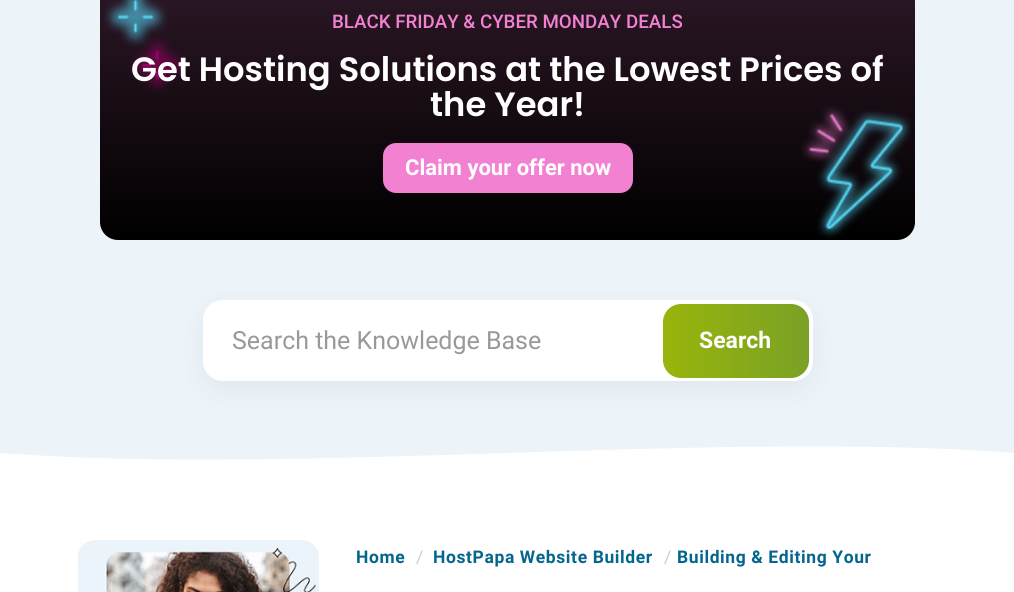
#include <cairo.h>
#include <math.h>
#include <stddef.h>


static void spaced_text(cairo_t *cr, double x, double y, const char *s, double letter, double word) {
    cairo_move_to(cr, x, y);
    while (*s) {
        char ch[5] = {0};
        int n = 0;
        do ch[n++] = *s++; while ((*s & 0xC0) == 0x80);
        cairo_show_text(cr, ch);
        cairo_rel_move_to(cr, letter + word * (*ch == ' '), 0);
    }
}

static void round_rect(cairo_t *cr, double x, double y, double w, double h, double r) {
    cairo_new_sub_path(cr);
    cairo_arc(cr, x + w - r, y + h - r, r, 0, M_PI / 2);
    cairo_arc(cr, x + r, y + h - r, r, M_PI / 2, M_PI);
    cairo_arc(cr, x + r, y + r, r, M_PI, 1.5 * M_PI);
    cairo_arc(cr, x + w - r, y + r, r, 1.5 * M_PI, 2 * M_PI);
    cairo_close_path(cr);
}

static void shadow(cairo_t *cr, double x, double y, double w, double h, double r, double blur, double alpha) {
    cairo_push_group_with_content(cr, CAIRO_CONTENT_ALPHA);
    cairo_set_operator(cr, CAIRO_OPERATOR_SOURCE);
    for (int i = 15; i >= -15 && fmin(w, h) + blur * i / 3 > 0; i -= 2) {
        double e = blur * i / 6;
        cairo_set_source_rgba(cr, 0, 0, 0, alpha * erfc((i - 1) / 8.5) / 2);
        round_rect(cr, x - e, y - e, w + 2 * e, h + 2 * e, fmax(0, fmin(r + e + blur * .6, fmin(w, h) / 2 + e)));
        cairo_fill(cr);
    }
    cairo_pattern_t *soft = cairo_pop_group(cr);
    cairo_mask(cr, soft);
    cairo_pattern_destroy(soft);
}

static void picture(cairo_t *cr, const char *path, double x, double y, double w, double h) {
    cairo_surface_t *image = cairo_image_surface_create_from_png(path);
    cairo_save(cr);
    cairo_set_source_surface(cr, image, x, y);
    cairo_rectangle(cr, x, y, w, h);
    cairo_fill(cr);
    cairo_restore(cr);
    cairo_surface_destroy(image);
}

int main(void) {
    cairo_surface_t *surface = cairo_image_surface_create(CAIRO_FORMAT_RGB24, 1014, 592);
    cairo_t *cr = cairo_create(surface);
    cairo_font_options_t *options = cairo_font_options_create();
    cairo_font_options_set_hint_metrics(options, CAIRO_HINT_METRICS_OFF);
    cairo_font_options_set_hint_style(options, CAIRO_HINT_STYLE_NONE);
    cairo_set_font_options(cr, options);
    cairo_set_miter_limit(cr, 4);
    cairo_pattern_t *gradient;
    cairo_set_source_rgb(cr, 1, 1, 1);
    cairo_paint(cr);
    cairo_set_source_rgb(cr, 0.922, 0.957, 0.98);
    cairo_rectangle(cr, 0, 0, 1014, 430);
    cairo_fill(cr);
    gradient = cairo_pattern_create_linear(508, -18, 508, 240);
    cairo_pattern_add_color_stop_rgba(gradient, 0, 0.173, 0.09, 0.149, 1);
    cairo_pattern_add_color_stop_rgba(gradient, 1, 0, 0, 0, 1);
    cairo_set_source(cr, gradient);
    cairo_pattern_destroy(gradient);
    round_rect(cr, 100, -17, 815, 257, 18);
    cairo_fill(cr);
    picture(cr, "img1.png", 104, 0, 82, 93);
    cairo_select_font_face(cr, "Roboto Medium", CAIRO_FONT_SLANT_NORMAL, CAIRO_FONT_WEIGHT_NORMAL);
    cairo_set_font_size(cr, 18.75);
    cairo_set_source_rgb(cr, 0.949, 0.506, 0.824);
    cairo_move_to(cr, 332, 28);
    cairo_show_text(cr, "BLACK FRIDAY & CYBER MONDAY DEALS");
    cairo_select_font_face(cr, "Poppins SemiBold", CAIRO_FONT_SLANT_NORMAL, CAIRO_FONT_WEIGHT_NORMAL);
    cairo_set_font_size(cr, 33.75);
    cairo_set_source_rgb(cr, 1, 1, 1);
    cairo_move_to(cr, 131, 81);
    cairo_show_text(cr, "Get Hosting Solutions at the Lowest Prices of");
    cairo_move_to(cr, 430, 116);
    cairo_show_text(cr, "the Year!");
    cairo_set_source_rgb(cr, 0.949, 0.506, 0.824);
    round_rect(cr, 383, 143, 250, 50, 13);
    cairo_fill(cr);
    cairo_select_font_face(cr, "Roboto", CAIRO_FONT_SLANT_NORMAL, CAIRO_FONT_WEIGHT_BOLD);
    cairo_set_font_size(cr, 22);
    cairo_set_source_rgb(cr, 1, 1, 1);
    cairo_move_to(cr, 405, 175);
    cairo_show_text(cr, "Claim your offer now");
    picture(cr, "img2.png", 801, 106, 110, 132);
    cairo_set_source_rgb(cr, 0.008, 0.078, 0.129);
    shadow(cr, 203, 308, 610, 81, 20, 12.5, 0.06);
    cairo_set_source_rgb(cr, 1, 1, 1);
    round_rect(cr, 203, 300, 610, 81, 20);
    cairo_fill(cr);
    cairo_select_font_face(cr, "Roboto", CAIRO_FONT_SLANT_NORMAL, CAIRO_FONT_WEIGHT_NORMAL);
    cairo_set_font_size(cr, 25);
    cairo_set_source_rgb(cr, 0.6, 0.6, 0.6);
    cairo_move_to(cr, 232, 349);
    cairo_show_text(cr, "Search the Knowledge Base");
    gradient = cairo_pattern_create_linear(663, 341, 809, 341);
    cairo_pattern_add_color_stop_rgba(gradient, 0, 0.596, 0.71, 0.043, 1);
    cairo_pattern_add_color_stop_rgba(gradient, 1, 0.478, 0.631, 0.145, 1);
    cairo_set_source(cr, gradient);
    cairo_pattern_destroy(gradient);
    round_rect(cr, 663, 304, 146, 74, 18);
    cairo_fill(cr);
    cairo_select_font_face(cr, "Roboto", CAIRO_FONT_SLANT_NORMAL, CAIRO_FONT_WEIGHT_BOLD);
    cairo_set_font_size(cr, 23);
    cairo_set_source_rgb(cr, 1, 1, 1);
    cairo_move_to(cr, 699, 348);
    cairo_show_text(cr, "Search");
    cairo_set_source_rgb(cr, 0.922, 0.957, 0.98);
    cairo_new_path(cr);
    cairo_move_to(cr, 0, 453);
    cairo_curve_to(cr, 305, 476, 710, 430, 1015, 453);
    cairo_line_to(cr, 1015, 430);
    cairo_line_to(cr, 0, 430);
    cairo_close_path(cr);
    cairo_fill(cr);
    picture(cr, "img3.png", 78, 540, 241, 52);
    cairo_set_font_size(cr, 17.5);
    cairo_set_source_rgb(cr, 0.02, 0.4, 0.553);
    spaced_text(cr, 356, 563, "Home", 0.6, 0);
    cairo_select_font_face(cr, "Roboto", CAIRO_FONT_SLANT_NORMAL, CAIRO_FONT_WEIGHT_NORMAL);
    cairo_set_source_rgb(cr, 0.8, 0.8, 0.8);
    spaced_text(cr, 416, 563, "/", 0.6, 0);
    cairo_select_font_face(cr, "Roboto", CAIRO_FONT_SLANT_NORMAL, CAIRO_FONT_WEIGHT_BOLD);
    cairo_set_source_rgb(cr, 0.02, 0.4, 0.553);
    spaced_text(cr, 433, 563, "HostPapa Website Builder", 0.6, 0);
    cairo_select_font_face(cr, "Roboto", CAIRO_FONT_SLANT_NORMAL, CAIRO_FONT_WEIGHT_NORMAL);
    cairo_set_source_rgb(cr, 0.8, 0.8, 0.8);
    spaced_text(cr, 664, 563, "/", 0.6, 0);
    cairo_select_font_face(cr, "Roboto", CAIRO_FONT_SLANT_NORMAL, CAIRO_FONT_WEIGHT_BOLD);
    cairo_set_source_rgb(cr, 0.02, 0.4, 0.553);
    spaced_text(cr, 677, 563, "Building & Editing Your", 0.6, 0);
    cairo_surface_write_to_png(surface, "page.png");
    cairo_font_options_destroy(options);
    cairo_destroy(cr);
    cairo_surface_destroy(surface);
    return 0;
}
